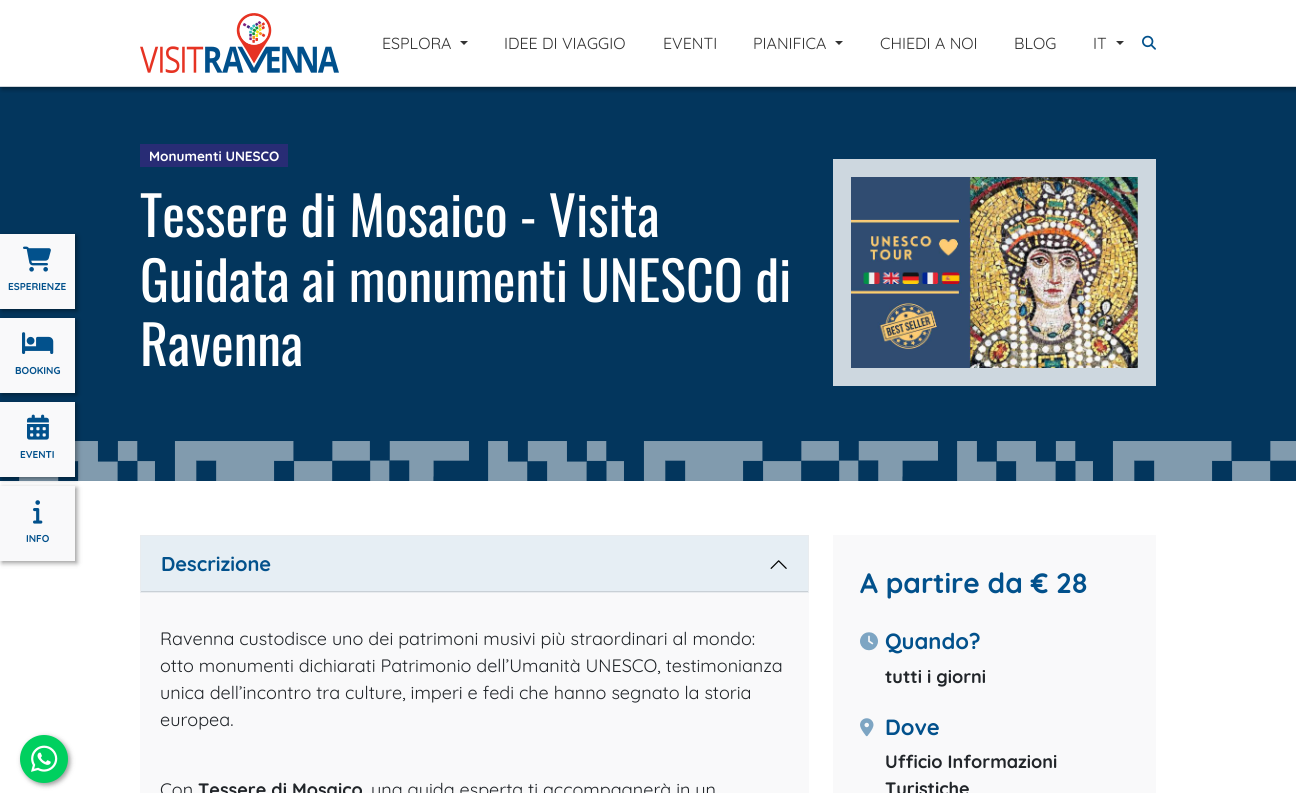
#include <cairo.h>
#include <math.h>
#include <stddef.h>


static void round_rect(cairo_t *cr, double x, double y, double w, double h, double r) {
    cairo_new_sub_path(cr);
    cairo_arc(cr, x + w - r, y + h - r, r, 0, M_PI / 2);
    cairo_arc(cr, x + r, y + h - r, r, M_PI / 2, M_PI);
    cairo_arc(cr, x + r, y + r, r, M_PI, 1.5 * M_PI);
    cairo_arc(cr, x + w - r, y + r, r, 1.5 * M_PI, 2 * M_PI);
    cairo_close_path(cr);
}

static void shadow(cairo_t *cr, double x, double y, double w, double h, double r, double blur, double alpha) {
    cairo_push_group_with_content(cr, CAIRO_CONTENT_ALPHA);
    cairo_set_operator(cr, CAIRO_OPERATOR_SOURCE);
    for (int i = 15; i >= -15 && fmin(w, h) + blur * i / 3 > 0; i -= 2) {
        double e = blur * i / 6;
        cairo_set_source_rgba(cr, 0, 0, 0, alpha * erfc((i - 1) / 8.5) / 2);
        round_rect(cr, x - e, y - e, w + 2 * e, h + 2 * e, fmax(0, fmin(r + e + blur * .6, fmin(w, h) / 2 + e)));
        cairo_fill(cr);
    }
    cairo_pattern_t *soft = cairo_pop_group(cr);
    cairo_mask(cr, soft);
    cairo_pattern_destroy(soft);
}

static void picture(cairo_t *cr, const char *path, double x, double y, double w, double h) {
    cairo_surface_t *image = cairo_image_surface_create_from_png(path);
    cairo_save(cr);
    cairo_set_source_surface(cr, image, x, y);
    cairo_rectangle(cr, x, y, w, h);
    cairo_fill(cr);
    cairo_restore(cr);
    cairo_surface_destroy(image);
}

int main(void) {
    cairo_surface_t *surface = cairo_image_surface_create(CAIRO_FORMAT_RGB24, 1296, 793);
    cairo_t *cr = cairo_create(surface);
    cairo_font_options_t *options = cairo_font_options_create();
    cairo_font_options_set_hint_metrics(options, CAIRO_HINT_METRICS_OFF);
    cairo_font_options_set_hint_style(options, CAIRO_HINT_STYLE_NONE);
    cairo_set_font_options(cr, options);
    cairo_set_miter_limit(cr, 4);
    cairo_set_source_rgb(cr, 1, 1, 1);
    cairo_paint(cr);
    cairo_set_source_rgb(cr, 0.012, 0.212, 0.365);
    cairo_rectangle(cr, 0, 87, 1296, 394);
    cairo_fill(cr);
    cairo_save(cr);
    cairo_rectangle(cr, 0, 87, 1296, 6);
    cairo_clip(cr);
    cairo_set_source_rgb(cr, 0, 0, 0);
    shadow(cr, 2, 2, 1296, 87, 0, 2.5, 0.4);
    cairo_restore(cr);
    picture(cr, "img1.png", 140, 13, 199, 60);
    cairo_select_font_face(cr, "Quicksand", CAIRO_FONT_SLANT_NORMAL, CAIRO_FONT_WEIGHT_NORMAL);
    cairo_set_font_size(cr, 16);
    cairo_set_source_rgb(cr, 0.2, 0.2, 0.2);
    cairo_move_to(cr, 382, 49);
    cairo_show_text(cr, "ESPLORA");
    cairo_new_path(cr);
    cairo_move_to(cr, 460, 41);
    cairo_line_to(cr, 468, 41);
    cairo_line_to(cr, 464, 45);
    cairo_close_path(cr);
    cairo_fill(cr);
    cairo_move_to(cr, 504, 49);
    cairo_show_text(cr, "IDEE DI VIAGGIO");
    cairo_move_to(cr, 663, 49);
    cairo_show_text(cr, "EVENTI");
    cairo_move_to(cr, 753, 49);
    cairo_show_text(cr, "PIANIFICA");
    cairo_new_path(cr);
    cairo_move_to(cr, 835, 41);
    cairo_line_to(cr, 843, 41);
    cairo_line_to(cr, 839, 45);
    cairo_close_path(cr);
    cairo_fill(cr);
    cairo_move_to(cr, 880, 49);
    cairo_show_text(cr, "CHIEDI A NOI");
    cairo_move_to(cr, 1014, 49);
    cairo_show_text(cr, "BLOG");
    cairo_move_to(cr, 1093, 49);
    cairo_show_text(cr, "IT");
    cairo_new_path(cr);
    cairo_move_to(cr, 1116, 41);
    cairo_line_to(cr, 1124, 41);
    cairo_line_to(cr, 1120, 45);
    cairo_close_path(cr);
    cairo_fill(cr);
    picture(cr, "img2.png", 1142, 35, 14, 15);
    cairo_set_source_rgb(cr, 0.808, 0.831, 0.855);
    cairo_rectangle(cr, 0, 86, 1296, 1);
    cairo_fill(cr);
    cairo_set_source_rgb(cr, 0.157, 0.173, 0.459);
    cairo_rectangle(cr, 140, 144, 148, 23);
    cairo_fill(cr);
    cairo_select_font_face(cr, "Quicksand", CAIRO_FONT_SLANT_NORMAL, CAIRO_FONT_WEIGHT_BOLD);
    cairo_set_font_size(cr, 13.5);
    cairo_set_source_rgb(cr, 1, 1, 1);
    cairo_move_to(cr, 149, 161);
    cairo_show_text(cr, "Monumenti UNESCO");
    cairo_select_font_face(cr, "Oswald", CAIRO_FONT_SLANT_NORMAL, CAIRO_FONT_WEIGHT_NORMAL);
    cairo_set_font_size(cr, 54);
    cairo_move_to(cr, 140, 237);
    cairo_show_text(cr, "Tessere di Mosaico - Visita");
    cairo_move_to(cr, 140, 302);
    cairo_show_text(cr, "Guidata ai monumenti UNESCO di");
    cairo_move_to(cr, 140, 366);
    cairo_show_text(cr, "Ravenna");
    cairo_set_source_rgb(cr, 0.804, 0.843, 0.875);
    cairo_rectangle(cr, 833, 159, 323, 227);
    cairo_fill(cr);
    picture(cr, "img3.png", 851, 177, 287, 191);
    picture(cr, "img4.png", 19, 441, 1277, 40);
    cairo_set_source_rgb(cr, 0, 0, 0);
    shadow(cr, 2, 236, 75, 75, 0, 2.5, 0.4);
    cairo_set_source_rgb(cr, 0.973, 0.976, 0.98);
    cairo_rectangle(cr, 0, 234, 75, 75);
    cairo_fill(cr);
    picture(cr, "img5.png", 23, 246, 28, 26);
    cairo_select_font_face(cr, "Quicksand", CAIRO_FONT_SLANT_NORMAL, CAIRO_FONT_WEIGHT_BOLD);
    cairo_set_font_size(cr, 10);
    cairo_set_source_rgb(cr, 0.008, 0.318, 0.549);
    cairo_move_to(cr, 8, 290);
    cairo_show_text(cr, "ESPERIENZE");
    cairo_set_source_rgb(cr, 0, 0, 0);
    shadow(cr, 2, 320, 75, 75, 0, 2.5, 0.4);
    cairo_set_source_rgb(cr, 0.973, 0.976, 0.98);
    cairo_rectangle(cr, 0, 318, 75, 75);
    cairo_fill(cr);
    picture(cr, "img6.png", 22, 332, 32, 22);
    cairo_set_source_rgb(cr, 0.008, 0.318, 0.549);
    cairo_move_to(cr, 15, 374);
    cairo_show_text(cr, "BOOKING");
    cairo_set_source_rgb(cr, 0, 0, 0);
    shadow(cr, 2, 404, 75, 75, 0, 2.5, 0.4);
    cairo_set_source_rgb(cr, 0.973, 0.976, 0.98);
    cairo_rectangle(cr, 0, 402, 75, 75);
    cairo_fill(cr);
    picture(cr, "img7.png", 27, 414, 22, 26);
    cairo_set_source_rgb(cr, 0.008, 0.318, 0.549);
    cairo_move_to(cr, 20, 458);
    cairo_show_text(cr, "EVENTI");
    cairo_set_source_rgb(cr, 0, 0, 0);
    shadow(cr, 2, 488, 75, 75, 0, 2.5, 0.4);
    cairo_set_source_rgb(cr, 0.973, 0.976, 0.98);
    cairo_rectangle(cr, 0, 486, 75, 75);
    cairo_fill(cr);
    picture(cr, "img8.png", 33, 500, 10, 24);
    cairo_set_source_rgb(cr, 0.008, 0.318, 0.549);
    cairo_move_to(cr, 26, 542);
    cairo_show_text(cr, "INFO");
    cairo_set_source_rgb(cr, 0.902, 0.933, 0.957);
    cairo_rectangle(cr, 141, 536, 667, 55);
    cairo_fill(cr);
    cairo_set_source_rgb(cr, 0.788, 0.816, 0.839);
    cairo_rectangle(cr, 141, 591, 667, 1);
    cairo_fill(cr);
    cairo_rectangle(cr, 140.5, 535.5, 668, 57);
    cairo_set_source_rgb(cr, 0.914, 0.925, 0.937);
    cairo_set_line_width(cr, 1);
    cairo_stroke(cr);
    cairo_set_font_size(cr, 20);
    cairo_set_source_rgb(cr, 0.008, 0.318, 0.549);
    cairo_move_to(cr, 161, 571);
    cairo_show_text(cr, "Descrizione");
    picture(cr, "img9.png", 770, 560, 17, 9);
    cairo_set_source_rgb(cr, 0.973, 0.976, 0.98);
    cairo_rectangle(cr, 140, 593, 669, 200);
    cairo_fill(cr);
    cairo_select_font_face(cr, "Quicksand", CAIRO_FONT_SLANT_NORMAL, CAIRO_FONT_WEIGHT_NORMAL);
    cairo_set_font_size(cr, 18);
    cairo_set_source_rgb(cr, 0.129, 0.145, 0.161);
    cairo_move_to(cr, 160, 645);
    cairo_show_text(cr, "Ravenna custodisce uno dei patrimoni musivi più straordinari al mondo:");
    cairo_move_to(cr, 160, 672);
    cairo_show_text(cr, "otto monumenti dichiarati Patrimonio dell’Umanità UNESCO, testimonianza");
    cairo_move_to(cr, 160, 699);
    cairo_show_text(cr, "unica dell’incontro tra culture, imperi e fedi che hanno segnato la storia");
    cairo_move_to(cr, 160, 726);
    cairo_show_text(cr, "europea.");
    cairo_move_to(cr, 160, 796);
    cairo_show_text(cr, "Con");
    cairo_select_font_face(cr, "Quicksand", CAIRO_FONT_SLANT_NORMAL, CAIRO_FONT_WEIGHT_BOLD);
    cairo_move_to(cr, 198, 796);
    cairo_show_text(cr, "Tessere di Mosaico");
    cairo_select_font_face(cr, "Quicksand", CAIRO_FONT_SLANT_NORMAL, CAIRO_FONT_WEIGHT_NORMAL);
    cairo_move_to(cr, 371, 796);
    cairo_show_text(cr, "una guida esperta ti accompagnerà in un");
    cairo_set_source_rgb(cr, 0.973, 0.976, 0.98);
    cairo_rectangle(cr, 833, 535, 323, 258);
    cairo_fill(cr);
    cairo_select_font_face(cr, "Quicksand", CAIRO_FONT_SLANT_NORMAL, CAIRO_FONT_WEIGHT_BOLD);
    cairo_set_font_size(cr, 28);
    cairo_set_source_rgb(cr, 0.008, 0.318, 0.549);
    cairo_move_to(cr, 860, 593);
    cairo_show_text(cr, "A partire da € 28");
    picture(cr, "img10.png", 860, 632, 18, 19);
    cairo_set_font_size(cr, 22);
    cairo_move_to(cr, 885, 649);
    cairo_show_text(cr, "Quando?");
    cairo_set_font_size(cr, 18);
    cairo_set_source_rgb(cr, 0.129, 0.145, 0.161);
    cairo_move_to(cr, 885, 683);
    cairo_show_text(cr, "tutti i giorni");
    picture(cr, "img11.png", 860, 718, 14, 19);
    cairo_set_font_size(cr, 22);
    cairo_set_source_rgb(cr, 0.008, 0.318, 0.549);
    cairo_move_to(cr, 885, 735);
    cairo_show_text(cr, "Dove");
    cairo_set_font_size(cr, 18);
    cairo_set_source_rgb(cr, 0.129, 0.145, 0.161);
    cairo_move_to(cr, 885, 768);
    cairo_show_text(cr, "Ufficio Informazioni");
    cairo_move_to(cr, 885, 795);
    cairo_show_text(cr, "Turistiche");
    cairo_set_source_rgb(cr, 0, 0, 0);
    shadow(cr, 22, 737, 48, 48, 24, 2.5, 0.4);
    cairo_set_source_rgb(cr, 0, 0.816, 0.373);
    cairo_arc(cr, 44, 759, 24, 0, 2 * M_PI);
    cairo_fill(cr);
    picture(cr, "img12.png", 31, 745, 27, 27);
    cairo_surface_write_to_png(surface, "page.png");
    cairo_font_options_destroy(options);
    cairo_destroy(cr);
    cairo_surface_destroy(surface);
    return 0;
}
